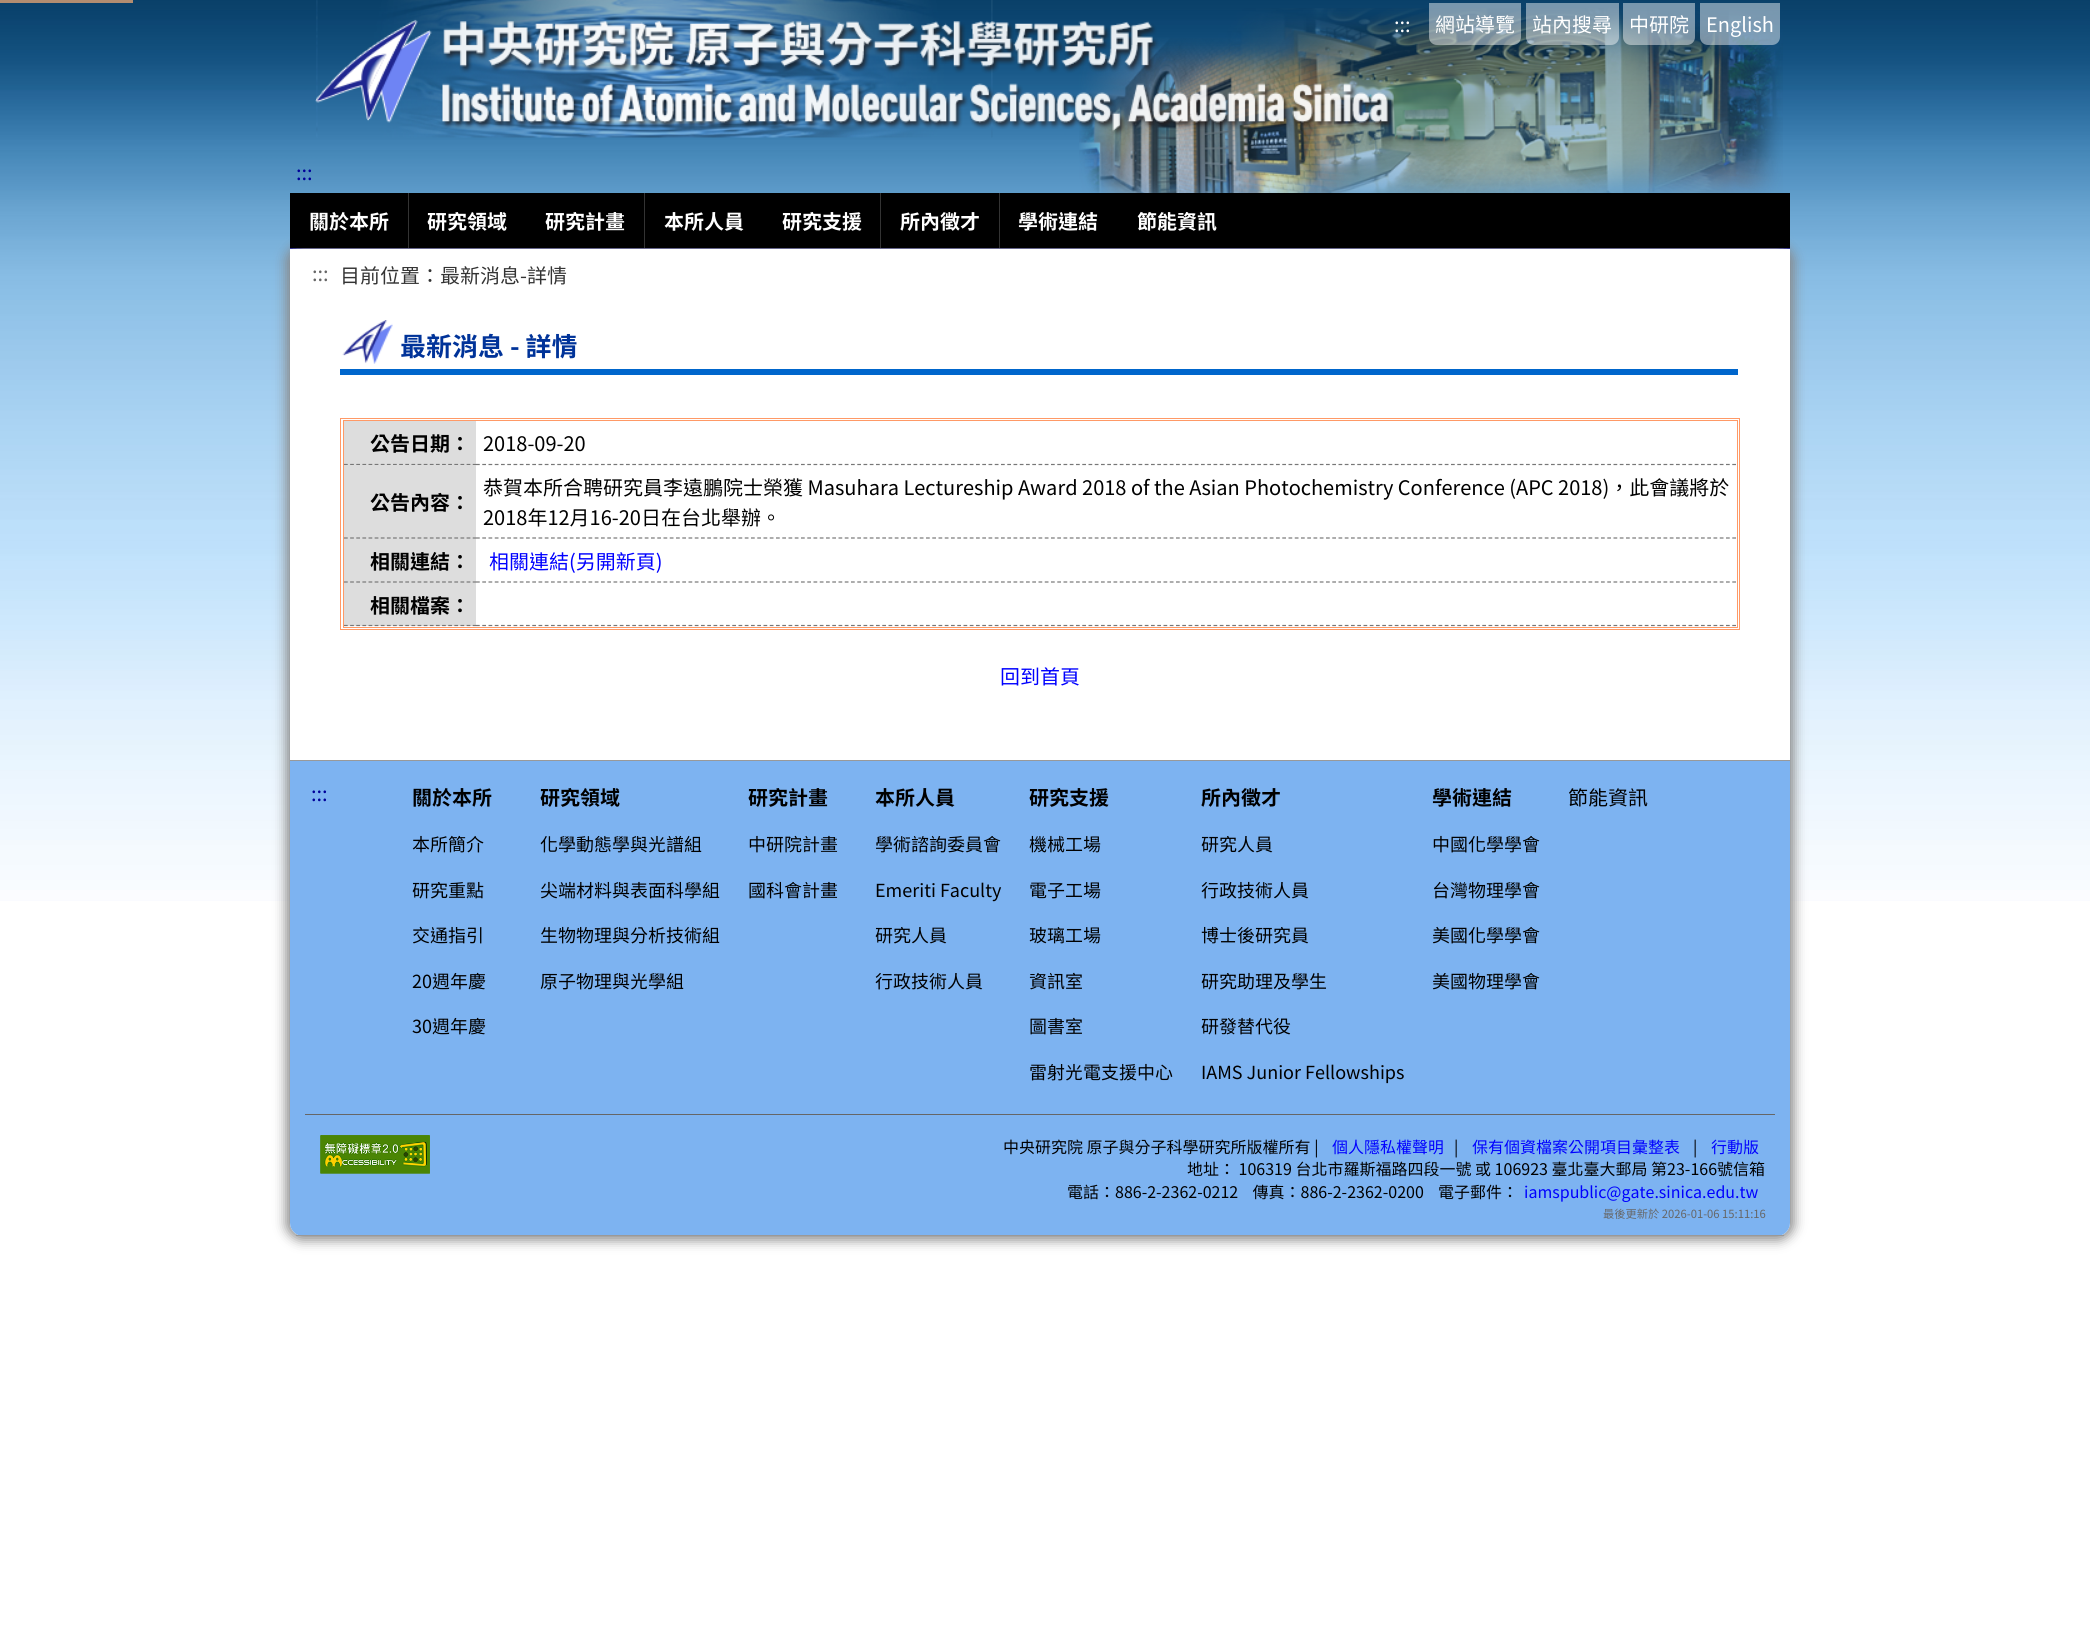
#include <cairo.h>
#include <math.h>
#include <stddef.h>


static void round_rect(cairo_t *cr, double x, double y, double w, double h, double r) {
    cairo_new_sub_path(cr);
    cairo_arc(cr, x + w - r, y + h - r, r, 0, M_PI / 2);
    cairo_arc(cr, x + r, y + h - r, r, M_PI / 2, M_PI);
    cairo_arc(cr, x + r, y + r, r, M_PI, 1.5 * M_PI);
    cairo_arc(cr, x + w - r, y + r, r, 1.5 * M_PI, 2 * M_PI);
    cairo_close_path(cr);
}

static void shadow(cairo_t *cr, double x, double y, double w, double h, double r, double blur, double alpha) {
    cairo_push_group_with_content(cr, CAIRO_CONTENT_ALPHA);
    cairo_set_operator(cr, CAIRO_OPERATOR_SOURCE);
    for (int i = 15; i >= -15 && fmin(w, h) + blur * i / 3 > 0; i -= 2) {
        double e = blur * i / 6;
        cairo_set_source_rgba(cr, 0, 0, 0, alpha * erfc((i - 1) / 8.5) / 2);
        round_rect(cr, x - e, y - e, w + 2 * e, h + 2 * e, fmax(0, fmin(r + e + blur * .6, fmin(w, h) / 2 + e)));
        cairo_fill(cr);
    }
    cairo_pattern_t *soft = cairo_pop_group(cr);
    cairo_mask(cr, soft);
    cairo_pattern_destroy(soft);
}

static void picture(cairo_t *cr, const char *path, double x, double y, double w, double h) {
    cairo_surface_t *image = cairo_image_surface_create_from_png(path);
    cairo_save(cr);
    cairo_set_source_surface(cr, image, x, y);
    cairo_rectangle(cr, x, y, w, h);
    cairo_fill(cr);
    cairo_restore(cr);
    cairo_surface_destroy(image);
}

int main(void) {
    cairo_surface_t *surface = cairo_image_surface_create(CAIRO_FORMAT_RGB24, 2090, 1651);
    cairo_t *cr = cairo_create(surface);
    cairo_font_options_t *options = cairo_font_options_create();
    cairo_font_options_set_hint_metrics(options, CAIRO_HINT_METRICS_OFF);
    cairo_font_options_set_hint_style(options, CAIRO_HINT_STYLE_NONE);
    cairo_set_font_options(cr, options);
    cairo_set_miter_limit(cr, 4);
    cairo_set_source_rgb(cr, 1, 1, 1);
    cairo_paint(cr);
    picture(cr, "img1.png", 0, 0, 2090, 901);
    cairo_set_source_rgb(cr, 0.706, 0.553, 0.439);
    cairo_rectangle(cr, 0, 0, 133, 3);
    cairo_fill(cr);
    picture(cr, "img2.png", 1079, 8, 704, 185);
    picture(cr, "img3.png", 315, 0, 1078, 138);
    cairo_select_font_face(cr, "Noto Sans TC", CAIRO_FONT_SLANT_NORMAL, CAIRO_FONT_WEIGHT_NORMAL);
    cairo_set_font_size(cr, 20);
    cairo_set_source_rgb(cr, 1, 1, 1);
    cairo_move_to(cr, 1394, 32);
    cairo_show_text(cr, ":::");
    cairo_set_source_rgba(cr, 1, 1, 1, 0.45);
    cairo_new_path(cr);
    cairo_move_to(cr, 1429, 3);
    cairo_line_to(cr, 1521, 3);
    cairo_line_to(cr, 1521, 37);
    cairo_curve_to(cr, 1521, 41.5, 1517.5, 45, 1513, 45);
    cairo_line_to(cr, 1437, 45);
    cairo_curve_to(cr, 1432.5, 45, 1429, 41.5, 1429, 37);
    cairo_close_path(cr);
    cairo_fill(cr);
    cairo_set_source_rgb(cr, 1, 1, 1);
    cairo_move_to(cr, 1435, 32);
    cairo_show_text(cr, "網站導覽");
    cairo_set_source_rgba(cr, 1, 1, 1, 0.45);
    cairo_new_path(cr);
    cairo_move_to(cr, 1526, 3);
    cairo_line_to(cr, 1619, 3);
    cairo_line_to(cr, 1619, 37);
    cairo_curve_to(cr, 1619, 41.5, 1615.5, 45, 1611, 45);
    cairo_line_to(cr, 1534, 45);
    cairo_curve_to(cr, 1529.5, 45, 1526, 41.5, 1526, 37);
    cairo_close_path(cr);
    cairo_fill(cr);
    cairo_set_source_rgb(cr, 1, 1, 1);
    cairo_move_to(cr, 1532, 32);
    cairo_show_text(cr, "站內搜尋");
    cairo_set_source_rgba(cr, 1, 1, 1, 0.45);
    cairo_new_path(cr);
    cairo_move_to(cr, 1623, 3);
    cairo_line_to(cr, 1695, 3);
    cairo_line_to(cr, 1695, 37);
    cairo_curve_to(cr, 1695, 41.5, 1691.5, 45, 1687, 45);
    cairo_line_to(cr, 1631, 45);
    cairo_curve_to(cr, 1626.5, 45, 1623, 41.5, 1623, 37);
    cairo_close_path(cr);
    cairo_fill(cr);
    cairo_set_source_rgb(cr, 1, 1, 1);
    cairo_move_to(cr, 1629, 32);
    cairo_show_text(cr, "中研院");
    cairo_set_source_rgba(cr, 1, 1, 1, 0.45);
    cairo_new_path(cr);
    cairo_move_to(cr, 1700, 3);
    cairo_line_to(cr, 1780, 3);
    cairo_line_to(cr, 1780, 37);
    cairo_curve_to(cr, 1780, 41.5, 1776.5, 45, 1772, 45);
    cairo_line_to(cr, 1708, 45);
    cairo_curve_to(cr, 1703.5, 45, 1700, 41.5, 1700, 37);
    cairo_close_path(cr);
    cairo_fill(cr);
    cairo_set_source_rgb(cr, 1, 1, 1);
    cairo_move_to(cr, 1706, 32);
    cairo_show_text(cr, "English");
    cairo_set_source_rgb(cr, 0, 0, 0.6);
    cairo_move_to(cr, 296, 180);
    cairo_show_text(cr, ":::");
    cairo_rectangle(cr, 290, 248, 1500, 1);
    cairo_fill(cr);
    cairo_set_source_rgb(cr, 0.533, 0.533, 0.533);
    shadow(cr, 286, 245, 1508, 995, 16, 6, 1);
    cairo_set_source_rgb(cr, 0, 0, 0);
    cairo_rectangle(cr, 290, 193, 1500, 55);
    cairo_fill(cr);
    cairo_set_source_rgb(cr, 0.2, 0.2, 0.2);
    cairo_rectangle(cr, 408, 193, 1, 55);
    cairo_fill(cr);
    cairo_select_font_face(cr, "Noto Sans TC", CAIRO_FONT_SLANT_NORMAL, CAIRO_FONT_WEIGHT_BOLD);
    cairo_set_source_rgb(cr, 1, 1, 1);
    cairo_move_to(cr, 309, 229);
    cairo_show_text(cr, "關於本所");
    cairo_move_to(cr, 427, 229);
    cairo_show_text(cr, "研究領域");
    cairo_set_source_rgb(cr, 0.2, 0.2, 0.2);
    cairo_rectangle(cr, 644, 193, 1, 55);
    cairo_fill(cr);
    cairo_set_source_rgb(cr, 1, 1, 1);
    cairo_move_to(cr, 545, 229);
    cairo_show_text(cr, "研究計畫");
    cairo_move_to(cr, 664, 229);
    cairo_show_text(cr, "本所人員");
    cairo_set_source_rgb(cr, 0.2, 0.2, 0.2);
    cairo_rectangle(cr, 880, 193, 1, 55);
    cairo_fill(cr);
    cairo_set_source_rgb(cr, 1, 1, 1);
    cairo_move_to(cr, 782, 229);
    cairo_show_text(cr, "研究支援");
    cairo_set_source_rgb(cr, 0.2, 0.2, 0.2);
    cairo_rectangle(cr, 999, 193, 1, 55);
    cairo_fill(cr);
    cairo_set_source_rgb(cr, 1, 1, 1);
    cairo_move_to(cr, 900, 229);
    cairo_show_text(cr, "所內徵才");
    cairo_move_to(cr, 1018, 229);
    cairo_show_text(cr, "學術連結");
    cairo_move_to(cr, 1137, 229);
    cairo_show_text(cr, "節能資訊");
    cairo_new_path(cr);
    cairo_move_to(cr, 290, 249);
    cairo_line_to(cr, 1790, 249);
    cairo_line_to(cr, 1790, 1223);
    cairo_curve_to(cr, 1790, 1230, 1784, 1236, 1777, 1236);
    cairo_line_to(cr, 303, 1236);
    cairo_curve_to(cr, 296, 1236, 290, 1230, 290, 1223);
    cairo_close_path(cr);
    cairo_fill(cr);
    cairo_select_font_face(cr, "Noto Sans TC", CAIRO_FONT_SLANT_NORMAL, CAIRO_FONT_WEIGHT_NORMAL);
    cairo_set_source_rgb(cr, 0.4, 0.4, 0.4);
    cairo_move_to(cr, 312, 281);
    cairo_show_text(cr, ":::");
    cairo_set_source_rgb(cr, 0.2, 0.2, 0.2);
    cairo_move_to(cr, 340, 283);
    cairo_show_text(cr, "目前位置：最新消息-詳情");
    picture(cr, "img4.png", 342, 320, 51, 44);
    cairo_set_source_rgb(cr, 0, 0.4, 0.8);
    cairo_rectangle(cr, 340, 369, 1398, 6);
    cairo_fill(cr);
    cairo_select_font_face(cr, "Noto Sans TC", CAIRO_FONT_SLANT_NORMAL, CAIRO_FONT_WEIGHT_BOLD);
    cairo_set_font_size(cr, 26);
    cairo_set_source_rgb(cr, 0, 0.2, 0.6);
    cairo_move_to(cr, 400, 356);
    cairo_show_text(cr, "最新消息 - 詳情");
    cairo_rectangle(cr, 340.5, 418.5, 1399, 211);
    cairo_set_source_rgb(cr, 1, 0.6, 0.4);
    cairo_set_line_width(cr, 1);
    cairo_stroke(cr);
    cairo_rectangle(cr, 343.5, 420.5, 1394, 207);
    cairo_stroke(cr);
    cairo_set_source_rgb(cr, 0.867, 0.867, 0.867);
    cairo_rectangle(cr, 344, 421, 132, 44);
    cairo_fill(cr);
    cairo_new_path(cr);
    cairo_move_to(cr, 344, 464.5);
    cairo_line_to(cr, 476, 464.5);
    cairo_set_source_rgb(cr, 0.467, 0.467, 0.467);
    cairo_set_line_width(cr, 1.2);
    cairo_set_dash(cr, (double[]){3.75, 2.38}, 2, 0);
    cairo_stroke(cr);
    cairo_set_font_size(cr, 20);
    cairo_set_source_rgb(cr, 0, 0, 0);
    cairo_move_to(cr, 370, 451);
    cairo_show_text(cr, "公告日期：");
    cairo_new_path(cr);
    cairo_move_to(cr, 476, 464.5);
    cairo_line_to(cr, 1736, 464.5);
    cairo_set_source_rgb(cr, 0.467, 0.467, 0.467);
    cairo_set_dash(cr, (double[]){3.75, 2.5}, 2, 0);
    cairo_stroke(cr);
    cairo_select_font_face(cr, "Noto Sans TC", CAIRO_FONT_SLANT_NORMAL, CAIRO_FONT_WEIGHT_NORMAL);
    cairo_set_source_rgb(cr, 0, 0, 0);
    cairo_move_to(cr, 483, 451);
    cairo_show_text(cr, "2018-09-20");
    cairo_set_source_rgb(cr, 0.867, 0.867, 0.867);
    cairo_rectangle(cr, 344, 465, 132, 161);
    cairo_fill(cr);
    cairo_new_path(cr);
    cairo_move_to(cr, 344, 538);
    cairo_line_to(cr, 476, 538);
    cairo_set_source_rgb(cr, 0.467, 0.467, 0.467);
    cairo_set_dash(cr, (double[]){3.75, 2.38}, 2, 0);
    cairo_stroke(cr);
    cairo_select_font_face(cr, "Noto Sans TC", CAIRO_FONT_SLANT_NORMAL, CAIRO_FONT_WEIGHT_BOLD);
    cairo_set_source_rgb(cr, 0, 0, 0);
    cairo_move_to(cr, 370, 510);
    cairo_show_text(cr, "公告內容：");
    cairo_new_path(cr);
    cairo_move_to(cr, 476, 538);
    cairo_line_to(cr, 1736, 538);
    cairo_set_source_rgb(cr, 0.467, 0.467, 0.467);
    cairo_set_dash(cr, (double[]){3.75, 2.5}, 2, 0);
    cairo_stroke(cr);
    cairo_select_font_face(cr, "Noto Sans TC", CAIRO_FONT_SLANT_NORMAL, CAIRO_FONT_WEIGHT_NORMAL);
    cairo_set_source_rgb(cr, 0, 0, 0);
    cairo_move_to(cr, 483, 495);
    cairo_show_text(cr, "恭賀本所合聘研究員李遠鵬院士榮獲 Masuhara Lectureship Award 2018 of the Asian Photochemistry Conference (APC 2018)，此會議將於");
    cairo_move_to(cr, 483, 525);
    cairo_show_text(cr, "2018年12月16-20日在台北舉辦。");
    cairo_new_path(cr);
    cairo_move_to(cr, 344, 582);
    cairo_line_to(cr, 476, 582);
    cairo_set_source_rgb(cr, 0.467, 0.467, 0.467);
    cairo_set_dash(cr, (double[]){3.75, 2.38}, 2, 0);
    cairo_stroke(cr);
    cairo_select_font_face(cr, "Noto Sans TC", CAIRO_FONT_SLANT_NORMAL, CAIRO_FONT_WEIGHT_BOLD);
    cairo_set_source_rgb(cr, 0, 0, 0);
    cairo_move_to(cr, 370, 569);
    cairo_show_text(cr, "相關連結：");
    cairo_new_path(cr);
    cairo_move_to(cr, 476, 582);
    cairo_line_to(cr, 1736, 582);
    cairo_set_source_rgb(cr, 0.467, 0.467, 0.467);
    cairo_set_dash(cr, (double[]){3.75, 2.5}, 2, 0);
    cairo_stroke(cr);
    cairo_select_font_face(cr, "Noto Sans TC", CAIRO_FONT_SLANT_NORMAL, CAIRO_FONT_WEIGHT_NORMAL);
    cairo_set_source_rgb(cr, 0, 0, 1);
    cairo_move_to(cr, 489, 569);
    cairo_show_text(cr, "相關連結(另開新頁)");
    cairo_new_path(cr);
    cairo_move_to(cr, 344, 625.5);
    cairo_line_to(cr, 476, 625.5);
    cairo_set_source_rgb(cr, 0.467, 0.467, 0.467);
    cairo_set_dash(cr, (double[]){3.75, 2.38}, 2, 0);
    cairo_stroke(cr);
    cairo_select_font_face(cr, "Noto Sans TC", CAIRO_FONT_SLANT_NORMAL, CAIRO_FONT_WEIGHT_BOLD);
    cairo_set_source_rgb(cr, 0, 0, 0);
    cairo_move_to(cr, 370, 613);
    cairo_show_text(cr, "相關檔案：");
    cairo_new_path(cr);
    cairo_move_to(cr, 476, 625.5);
    cairo_line_to(cr, 1736, 625.5);
    cairo_set_source_rgb(cr, 0.467, 0.467, 0.467);
    cairo_set_dash(cr, (double[]){3.75, 2.5}, 2, 0);
    cairo_stroke(cr);
    cairo_select_font_face(cr, "Noto Sans TC", CAIRO_FONT_SLANT_NORMAL, CAIRO_FONT_WEIGHT_NORMAL);
    cairo_set_source_rgb(cr, 0, 0, 1);
    cairo_move_to(cr, 1000, 684);
    cairo_show_text(cr, "回到首頁");
    cairo_set_source_rgb(cr, 0.49, 0.702, 0.945);
    cairo_new_path(cr);
    cairo_move_to(cr, 290, 760);
    cairo_line_to(cr, 1790, 760);
    cairo_line_to(cr, 1790, 1223);
    cairo_curve_to(cr, 1790, 1230, 1784, 1236, 1777, 1236);
    cairo_line_to(cr, 303, 1236);
    cairo_curve_to(cr, 296, 1236, 290, 1230, 290, 1223);
    cairo_close_path(cr);
    cairo_fill(cr);
    cairo_set_source_rgb(cr, 0.6, 0.6, 0.6);
    cairo_rectangle(cr, 290, 760, 1500, 1);
    cairo_fill(cr);
    cairo_rectangle(cr, 296, 1235, 1488, 1);
    cairo_fill(cr);
    cairo_set_source_rgb(cr, 0, 0, 0.6);
    cairo_move_to(cr, 311, 801);
    cairo_show_text(cr, ":::");
    cairo_set_source_rgb(cr, 0.4, 0.4, 0.4);
    cairo_rectangle(cr, 305, 1114, 1470, 1);
    cairo_fill(cr);
    cairo_select_font_face(cr, "Noto Sans TC", CAIRO_FONT_SLANT_NORMAL, CAIRO_FONT_WEIGHT_BOLD);
    cairo_set_source_rgb(cr, 0, 0, 0);
    cairo_move_to(cr, 412, 805);
    cairo_show_text(cr, "關於本所");
    cairo_select_font_face(cr, "Noto Sans TC", CAIRO_FONT_SLANT_NORMAL, CAIRO_FONT_WEIGHT_NORMAL);
    cairo_set_font_size(cr, 18);
    cairo_move_to(cr, 412, 851);
    cairo_show_text(cr, "本所簡介");
    cairo_move_to(cr, 412, 897);
    cairo_show_text(cr, "研究重點");
    cairo_move_to(cr, 412, 942);
    cairo_show_text(cr, "交通指引");
    cairo_move_to(cr, 412, 988);
    cairo_show_text(cr, "20週年慶");
    cairo_move_to(cr, 412, 1033);
    cairo_show_text(cr, "30週年慶");
    cairo_select_font_face(cr, "Noto Sans TC", CAIRO_FONT_SLANT_NORMAL, CAIRO_FONT_WEIGHT_BOLD);
    cairo_set_font_size(cr, 20);
    cairo_move_to(cr, 540, 805);
    cairo_show_text(cr, "研究領域");
    cairo_select_font_face(cr, "Noto Sans TC", CAIRO_FONT_SLANT_NORMAL, CAIRO_FONT_WEIGHT_NORMAL);
    cairo_set_font_size(cr, 18);
    cairo_move_to(cr, 540, 851);
    cairo_show_text(cr, "化學動態學與光譜組");
    cairo_move_to(cr, 540, 897);
    cairo_show_text(cr, "尖端材料與表面科學組");
    cairo_move_to(cr, 540, 942);
    cairo_show_text(cr, "生物物理與分析技術組");
    cairo_move_to(cr, 540, 988);
    cairo_show_text(cr, "原子物理與光學組");
    cairo_select_font_face(cr, "Noto Sans TC", CAIRO_FONT_SLANT_NORMAL, CAIRO_FONT_WEIGHT_BOLD);
    cairo_set_font_size(cr, 20);
    cairo_move_to(cr, 748, 805);
    cairo_show_text(cr, "研究計畫");
    cairo_select_font_face(cr, "Noto Sans TC", CAIRO_FONT_SLANT_NORMAL, CAIRO_FONT_WEIGHT_NORMAL);
    cairo_set_font_size(cr, 18);
    cairo_move_to(cr, 748, 851);
    cairo_show_text(cr, "中研院計畫");
    cairo_move_to(cr, 748, 897);
    cairo_show_text(cr, "國科會計畫");
    cairo_select_font_face(cr, "Noto Sans TC", CAIRO_FONT_SLANT_NORMAL, CAIRO_FONT_WEIGHT_BOLD);
    cairo_set_font_size(cr, 20);
    cairo_move_to(cr, 875, 805);
    cairo_show_text(cr, "本所人員");
    cairo_select_font_face(cr, "Noto Sans TC", CAIRO_FONT_SLANT_NORMAL, CAIRO_FONT_WEIGHT_NORMAL);
    cairo_set_font_size(cr, 18);
    cairo_move_to(cr, 875, 851);
    cairo_show_text(cr, "學術諮詢委員會");
    cairo_move_to(cr, 875, 897);
    cairo_show_text(cr, "Emeriti Faculty");
    cairo_move_to(cr, 875, 942);
    cairo_show_text(cr, "研究人員");
    cairo_move_to(cr, 875, 988);
    cairo_show_text(cr, "行政技術人員");
    cairo_select_font_face(cr, "Noto Sans TC", CAIRO_FONT_SLANT_NORMAL, CAIRO_FONT_WEIGHT_BOLD);
    cairo_set_font_size(cr, 20);
    cairo_move_to(cr, 1029, 805);
    cairo_show_text(cr, "研究支援");
    cairo_select_font_face(cr, "Noto Sans TC", CAIRO_FONT_SLANT_NORMAL, CAIRO_FONT_WEIGHT_NORMAL);
    cairo_set_font_size(cr, 18);
    cairo_move_to(cr, 1029, 851);
    cairo_show_text(cr, "機械工場");
    cairo_move_to(cr, 1029, 897);
    cairo_show_text(cr, "電子工場");
    cairo_move_to(cr, 1029, 942);
    cairo_show_text(cr, "玻璃工場");
    cairo_move_to(cr, 1029, 988);
    cairo_show_text(cr, "資訊室");
    cairo_move_to(cr, 1029, 1033);
    cairo_show_text(cr, "圖書室");
    cairo_move_to(cr, 1029, 1079);
    cairo_show_text(cr, "雷射光電支援中心");
    cairo_select_font_face(cr, "Noto Sans TC", CAIRO_FONT_SLANT_NORMAL, CAIRO_FONT_WEIGHT_BOLD);
    cairo_set_font_size(cr, 20);
    cairo_move_to(cr, 1201, 805);
    cairo_show_text(cr, "所內徵才");
    cairo_select_font_face(cr, "Noto Sans TC", CAIRO_FONT_SLANT_NORMAL, CAIRO_FONT_WEIGHT_NORMAL);
    cairo_set_font_size(cr, 18);
    cairo_move_to(cr, 1201, 851);
    cairo_show_text(cr, "研究人員");
    cairo_move_to(cr, 1201, 897);
    cairo_show_text(cr, "行政技術人員");
    cairo_move_to(cr, 1201, 942);
    cairo_show_text(cr, "博士後研究員");
    cairo_move_to(cr, 1201, 988);
    cairo_show_text(cr, "研究助理及學生");
    cairo_move_to(cr, 1201, 1033);
    cairo_show_text(cr, "研發替代役");
    cairo_move_to(cr, 1201, 1079);
    cairo_show_text(cr, "IAMS Junior Fellowships");
    cairo_select_font_face(cr, "Noto Sans TC", CAIRO_FONT_SLANT_NORMAL, CAIRO_FONT_WEIGHT_BOLD);
    cairo_set_font_size(cr, 20);
    cairo_move_to(cr, 1432, 805);
    cairo_show_text(cr, "學術連結");
    cairo_select_font_face(cr, "Noto Sans TC", CAIRO_FONT_SLANT_NORMAL, CAIRO_FONT_WEIGHT_NORMAL);
    cairo_set_font_size(cr, 18);
    cairo_move_to(cr, 1432, 851);
    cairo_show_text(cr, "中國化學學會");
    cairo_move_to(cr, 1432, 897);
    cairo_show_text(cr, "台灣物理學會");
    cairo_move_to(cr, 1432, 942);
    cairo_show_text(cr, "美國化學學會");
    cairo_move_to(cr, 1432, 988);
    cairo_show_text(cr, "美國物理學會");
    cairo_set_font_size(cr, 20);
    cairo_move_to(cr, 1568, 805);
    cairo_show_text(cr, "節能資訊");
    picture(cr, "img5.png", 320, 1135, 110, 39);
    cairo_set_font_size(cr, 16);
    cairo_move_to(cr, 1003, 1153);
    cairo_show_text(cr, "中央研究院 原子與分子科學研究所版權所有 |");
    cairo_set_source_rgb(cr, 0, 0, 1);
    cairo_move_to(cr, 1332, 1153);
    cairo_show_text(cr, "個人隱私權聲明");
    cairo_set_source_rgb(cr, 0, 0, 0);
    cairo_move_to(cr, 1454, 1153);
    cairo_show_text(cr, "|");
    cairo_set_source_rgb(cr, 0, 0, 1);
    cairo_move_to(cr, 1472, 1153);
    cairo_show_text(cr, "保有個資檔案公開項目彙整表");
    cairo_set_source_rgb(cr, 0, 0, 0);
    cairo_move_to(cr, 1693, 1153);
    cairo_show_text(cr, "|");
    cairo_set_source_rgb(cr, 0, 0, 1);
    cairo_move_to(cr, 1711, 1153);
    cairo_show_text(cr, "行動版");
    cairo_set_source_rgb(cr, 0, 0, 0);
    cairo_move_to(cr, 1187, 1175);
    cairo_show_text(cr, "地址： 106319 台北市羅斯福路四段一號 或 106923 臺北臺大郵局 第23-166號信箱");
    cairo_move_to(cr, 1067, 1198);
    cairo_show_text(cr, "電話：886-2-2362-0212    傳真：886-2-2362-0200    電子郵件：");
    cairo_set_source_rgb(cr, 0, 0, 1);
    cairo_move_to(cr, 1524, 1198);
    cairo_show_text(cr, "iamspublic@gate.sinica.edu.tw");
    cairo_set_font_size(cr, 11.25);
    cairo_set_source_rgb(cr, 0.4, 0.4, 0.4);
    cairo_move_to(cr, 1603, 1218);
    cairo_show_text(cr, "最後更新於 2026-01-06 15:11:16");
    cairo_surface_write_to_png(surface, "page.png");
    cairo_font_options_destroy(options);
    cairo_destroy(cr);
    cairo_surface_destroy(surface);
    return 0;
}
